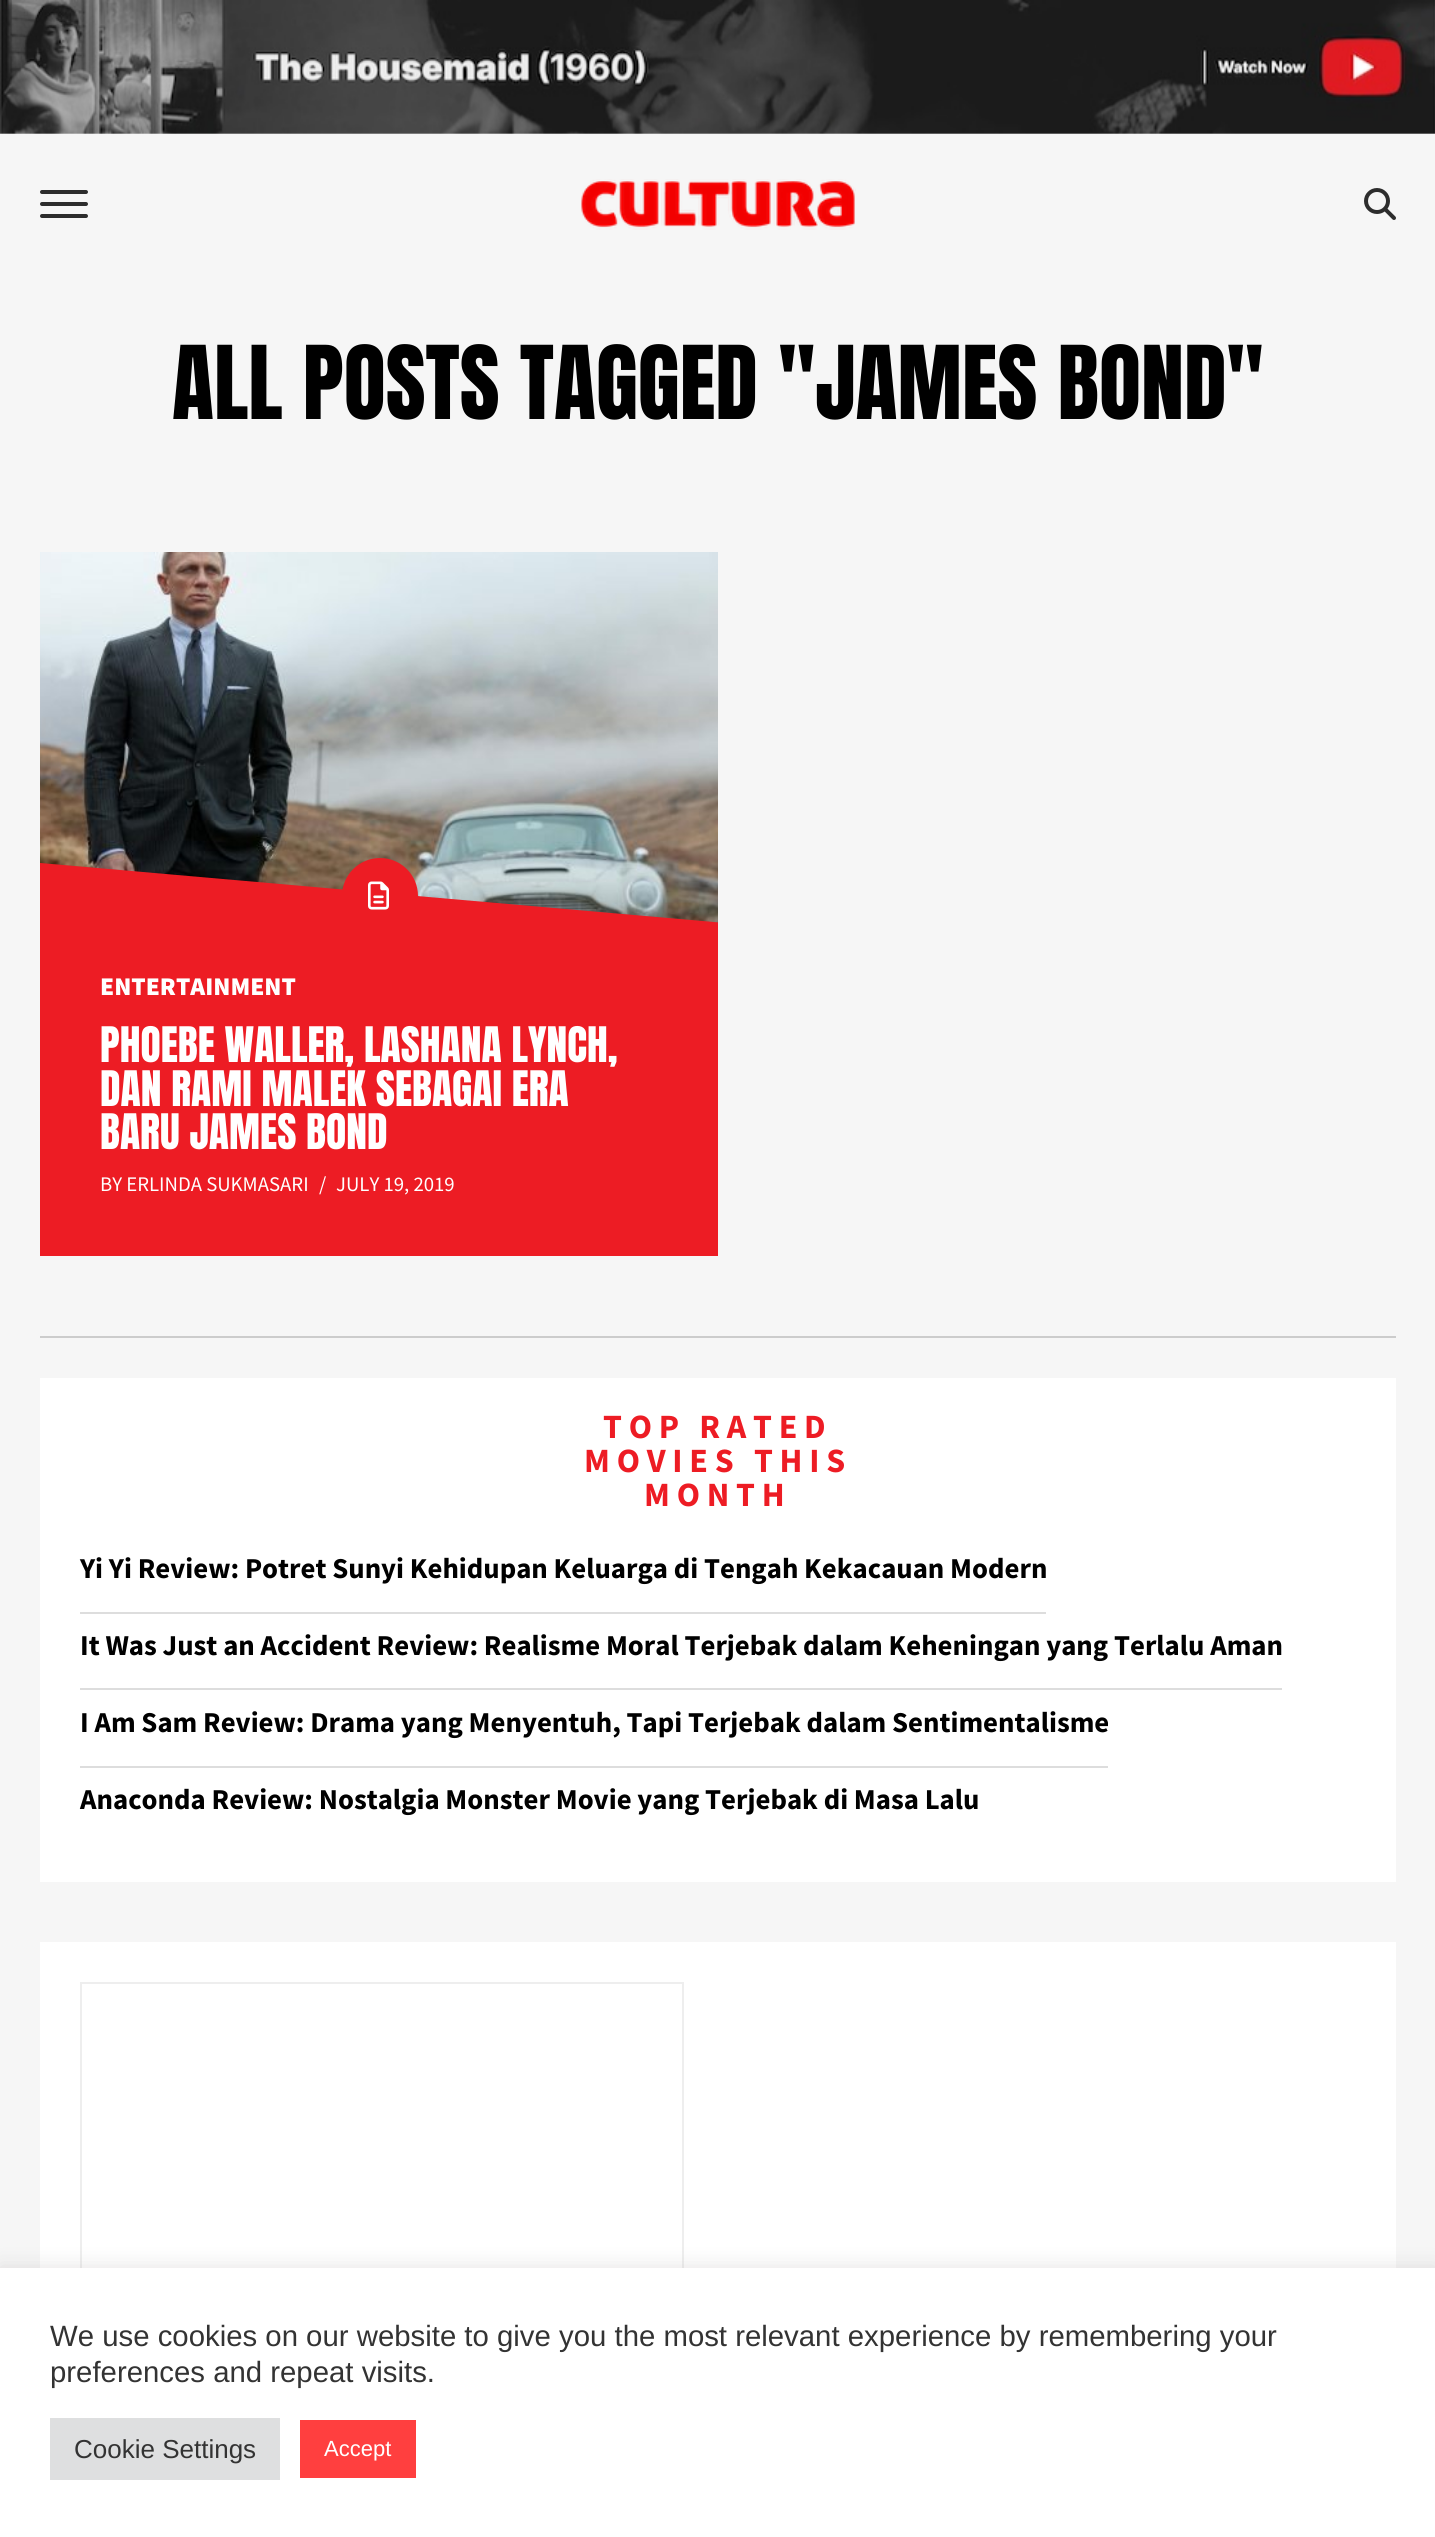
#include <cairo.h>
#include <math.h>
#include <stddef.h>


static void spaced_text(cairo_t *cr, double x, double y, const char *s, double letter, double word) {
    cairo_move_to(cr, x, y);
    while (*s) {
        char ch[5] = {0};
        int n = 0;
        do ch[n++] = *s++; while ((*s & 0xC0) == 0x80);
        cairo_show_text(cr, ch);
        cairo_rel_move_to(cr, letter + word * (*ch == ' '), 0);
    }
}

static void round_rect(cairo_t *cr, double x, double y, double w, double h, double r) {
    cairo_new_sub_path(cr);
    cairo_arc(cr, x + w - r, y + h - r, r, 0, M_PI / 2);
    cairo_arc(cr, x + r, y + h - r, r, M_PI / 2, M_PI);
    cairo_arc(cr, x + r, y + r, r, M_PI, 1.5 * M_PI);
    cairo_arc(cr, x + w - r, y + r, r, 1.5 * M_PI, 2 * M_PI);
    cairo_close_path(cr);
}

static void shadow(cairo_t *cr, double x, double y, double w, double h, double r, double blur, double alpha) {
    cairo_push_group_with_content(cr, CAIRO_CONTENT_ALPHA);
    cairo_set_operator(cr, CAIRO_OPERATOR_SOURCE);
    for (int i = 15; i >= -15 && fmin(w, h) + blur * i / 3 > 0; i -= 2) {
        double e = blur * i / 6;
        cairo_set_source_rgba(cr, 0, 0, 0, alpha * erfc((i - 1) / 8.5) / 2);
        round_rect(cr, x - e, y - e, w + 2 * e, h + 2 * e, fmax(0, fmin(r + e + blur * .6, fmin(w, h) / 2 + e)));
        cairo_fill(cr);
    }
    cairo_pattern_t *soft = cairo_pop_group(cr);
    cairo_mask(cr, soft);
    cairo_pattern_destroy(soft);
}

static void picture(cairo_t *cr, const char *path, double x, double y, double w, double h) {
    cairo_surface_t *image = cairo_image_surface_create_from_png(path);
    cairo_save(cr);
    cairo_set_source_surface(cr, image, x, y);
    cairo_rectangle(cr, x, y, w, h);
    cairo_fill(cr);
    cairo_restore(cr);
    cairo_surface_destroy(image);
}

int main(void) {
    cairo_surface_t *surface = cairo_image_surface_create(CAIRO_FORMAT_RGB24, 1435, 2537);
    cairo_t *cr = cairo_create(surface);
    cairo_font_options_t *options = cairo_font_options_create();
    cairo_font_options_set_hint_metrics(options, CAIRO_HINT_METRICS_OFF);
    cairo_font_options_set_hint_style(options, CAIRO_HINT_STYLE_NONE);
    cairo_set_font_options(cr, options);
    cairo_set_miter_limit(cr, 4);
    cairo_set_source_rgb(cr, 0.961, 0.961, 0.961);
    cairo_paint(cr);
    picture(cr, "img1.png", 0, 0, 1435, 134);
    cairo_set_source_rgb(cr, 0.176, 0.176, 0.176);
    round_rect(cr, 40, 190, 48, 4, 2);
    cairo_fill(cr);
    round_rect(cr, 40, 202, 48, 4, 2);
    cairo_fill(cr);
    round_rect(cr, 40, 214, 48, 4, 2);
    cairo_fill(cr);
    picture(cr, "img2.png", 581, 179, 275, 51);
    picture(cr, "img3.png", 1364, 188, 32, 32);
    cairo_select_font_face(cr, "Anton", CAIRO_FONT_SLANT_NORMAL, CAIRO_FONT_WEIGHT_NORMAL);
    cairo_set_font_size(cr, 86.4);
    cairo_set_source_rgb(cr, 0, 0, 0);
    cairo_move_to(cr, 172, 419);
    cairo_show_text(cr, "ALL POSTS TAGGED \"JAMES BOND\"");
    cairo_set_source_rgb(cr, 0.929, 0.11, 0.141);
    cairo_rectangle(cr, 40, 952, 678, 304);
    cairo_fill(cr);
    picture(cr, "img4.png", 40, 552, 678, 371);
    cairo_save(cr);
    cairo_rectangle(cr, 40, 552, 678, 400);
    cairo_clip(cr);
    cairo_new_path(cr);
    cairo_move_to(cr, 40, 863);
    cairo_line_to(cr, 725, 923);
    cairo_line_to(cr, 725, 1223);
    cairo_line_to(cr, 40, 1163);
    cairo_close_path(cr);
    cairo_fill(cr);
    cairo_restore(cr);
    cairo_arc(cr, 380, 896, 38, 0, 2 * M_PI);
    cairo_fill(cr);
    picture(cr, "img5.png", 368, 881, 21, 29);
    cairo_select_font_face(cr, "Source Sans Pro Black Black", CAIRO_FONT_SLANT_NORMAL, CAIRO_FONT_WEIGHT_NORMAL);
    cairo_set_font_size(cr, 25.5);
    cairo_set_source_rgb(cr, 1, 1, 1);
    cairo_move_to(cr, 100, 995);
    cairo_show_text(cr, "ENTERTAINMENT");
    cairo_select_font_face(cr, "Anton", CAIRO_FONT_SLANT_NORMAL, CAIRO_FONT_WEIGHT_NORMAL);
    cairo_set_font_size(cr, 41.6);
    cairo_move_to(cr, 100, 1062);
    cairo_show_text(cr, "PHOEBE WALLER, LASHANA LYNCH,");
    cairo_move_to(cr, 100, 1106);
    cairo_show_text(cr, "DAN RAMI MALEK SEBAGAI ERA");
    cairo_move_to(cr, 100, 1149);
    cairo_show_text(cr, "BARU JAMES BOND");
    cairo_select_font_face(cr, "Source Sans Pro", CAIRO_FONT_SLANT_NORMAL, CAIRO_FONT_WEIGHT_NORMAL);
    cairo_set_font_size(cr, 20.75);
    cairo_move_to(cr, 100, 1191);
    cairo_show_text(cr, "BY ERLINDA SUKMASARI");
    cairo_move_to(cr, 319, 1191);
    cairo_show_text(cr, "/");
    cairo_move_to(cr, 336, 1191);
    cairo_show_text(cr, "JULY 19, 2019");
    cairo_set_source_rgb(cr, 0.8, 0.8, 0.8);
    cairo_rectangle(cr, 40, 1336, 1356, 2);
    cairo_fill(cr);
    cairo_set_source_rgb(cr, 1, 1, 1);
    cairo_rectangle(cr, 40, 1378, 1356, 504);
    cairo_fill(cr);
    cairo_select_font_face(cr, "Source Sans Pro", CAIRO_FONT_SLANT_NORMAL, CAIRO_FONT_WEIGHT_BOLD);
    cairo_set_font_size(cr, 34);
    cairo_set_source_rgb(cr, 0.929, 0.11, 0.141);
    spaced_text(cr, 603, 1438, "TOP RATED", 6.75, 0);
    spaced_text(cr, 584, 1472, "MOVIES THIS", 6.75, 0);
    spaced_text(cr, 644, 1506, "MONTH", 6.75, 0);
    cairo_set_source_rgb(cr, 0.867, 0.867, 0.867);
    cairo_rectangle(cr, 80, 1612, 966, 2);
    cairo_fill(cr);
    cairo_set_font_size(cr, 28.8);
    cairo_set_source_rgb(cr, 0, 0, 0);
    cairo_move_to(cr, 80, 1578);
    cairo_show_text(cr, "Yi Yi Review: Potret Sunyi Kehidupan Keluarga di Tengah Kekacauan Modern");
    cairo_set_source_rgb(cr, 0.867, 0.867, 0.867);
    cairo_rectangle(cr, 80, 1688, 1202, 2);
    cairo_fill(cr);
    cairo_set_source_rgb(cr, 0, 0, 0);
    cairo_move_to(cr, 80, 1655);
    cairo_show_text(cr, "It Was Just an Accident Review: Realisme Moral Terjebak dalam Keheningan yang Terlalu Aman");
    cairo_set_source_rgb(cr, 0.867, 0.867, 0.867);
    cairo_rectangle(cr, 80, 1766, 1028, 2);
    cairo_fill(cr);
    cairo_set_source_rgb(cr, 0, 0, 0);
    cairo_move_to(cr, 80, 1732);
    cairo_show_text(cr, "I Am Sam Review: Drama yang Menyentuh, Tapi Terjebak dalam Sentimentalisme");
    cairo_move_to(cr, 80, 1809);
    cairo_show_text(cr, "Anaconda Review: Nostalgia Monster Movie yang Terjebak di Masa Lalu");
    cairo_set_source_rgb(cr, 1, 1, 1);
    cairo_rectangle(cr, 40, 1942, 1356, 326);
    cairo_fill(cr);
    cairo_rectangle(cr, 81, 1983, 602, 302);
    cairo_set_source_rgb(cr, 0.933, 0.933, 0.933);
    cairo_stroke(cr);
    cairo_set_source_rgb(cr, 0.675, 0.671, 0.671);
    shadow(cr, 0, 2266, 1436, 270, 0, 10, 0.3);
    cairo_set_source_rgb(cr, 1, 1, 1);
    cairo_rectangle(cr, 0, 2268, 1435, 269);
    cairo_fill(cr);
    cairo_select_font_face(cr, "Liberation Sans", CAIRO_FONT_SLANT_NORMAL, CAIRO_FONT_WEIGHT_NORMAL);
    cairo_set_font_size(cr, 29.35);
    cairo_set_source_rgb(cr, 0.2, 0.2, 0.2);
    cairo_move_to(cr, 50, 2346);
    cairo_show_text(cr, "We use cookies on our website to give you the most relevant experience by remembering your");
    cairo_move_to(cr, 50, 2382);
    cairo_show_text(cr, "preferences and repeat visits.");
    cairo_set_source_rgb(cr, 0.871, 0.875, 0.878);
    cairo_rectangle(cr, 50, 2418, 230, 62);
    cairo_fill(cr);
    cairo_set_font_size(cr, 26);
    cairo_set_source_rgb(cr, 0.2, 0.2, 0.2);
    cairo_move_to(cr, 74, 2458);
    cairo_show_text(cr, "Cookie Settings");
    cairo_set_source_rgb(cr, 1, 0.247, 0.247);
    cairo_rectangle(cr, 300, 2420, 116, 58);
    cairo_fill(cr);
    cairo_set_font_size(cr, 22);
    cairo_set_source_rgb(cr, 1, 1, 1);
    cairo_move_to(cr, 324, 2456);
    cairo_show_text(cr, "Accept");
    cairo_surface_write_to_png(surface, "page.png");
    cairo_font_options_destroy(options);
    cairo_destroy(cr);
    cairo_surface_destroy(surface);
    return 0;
}
